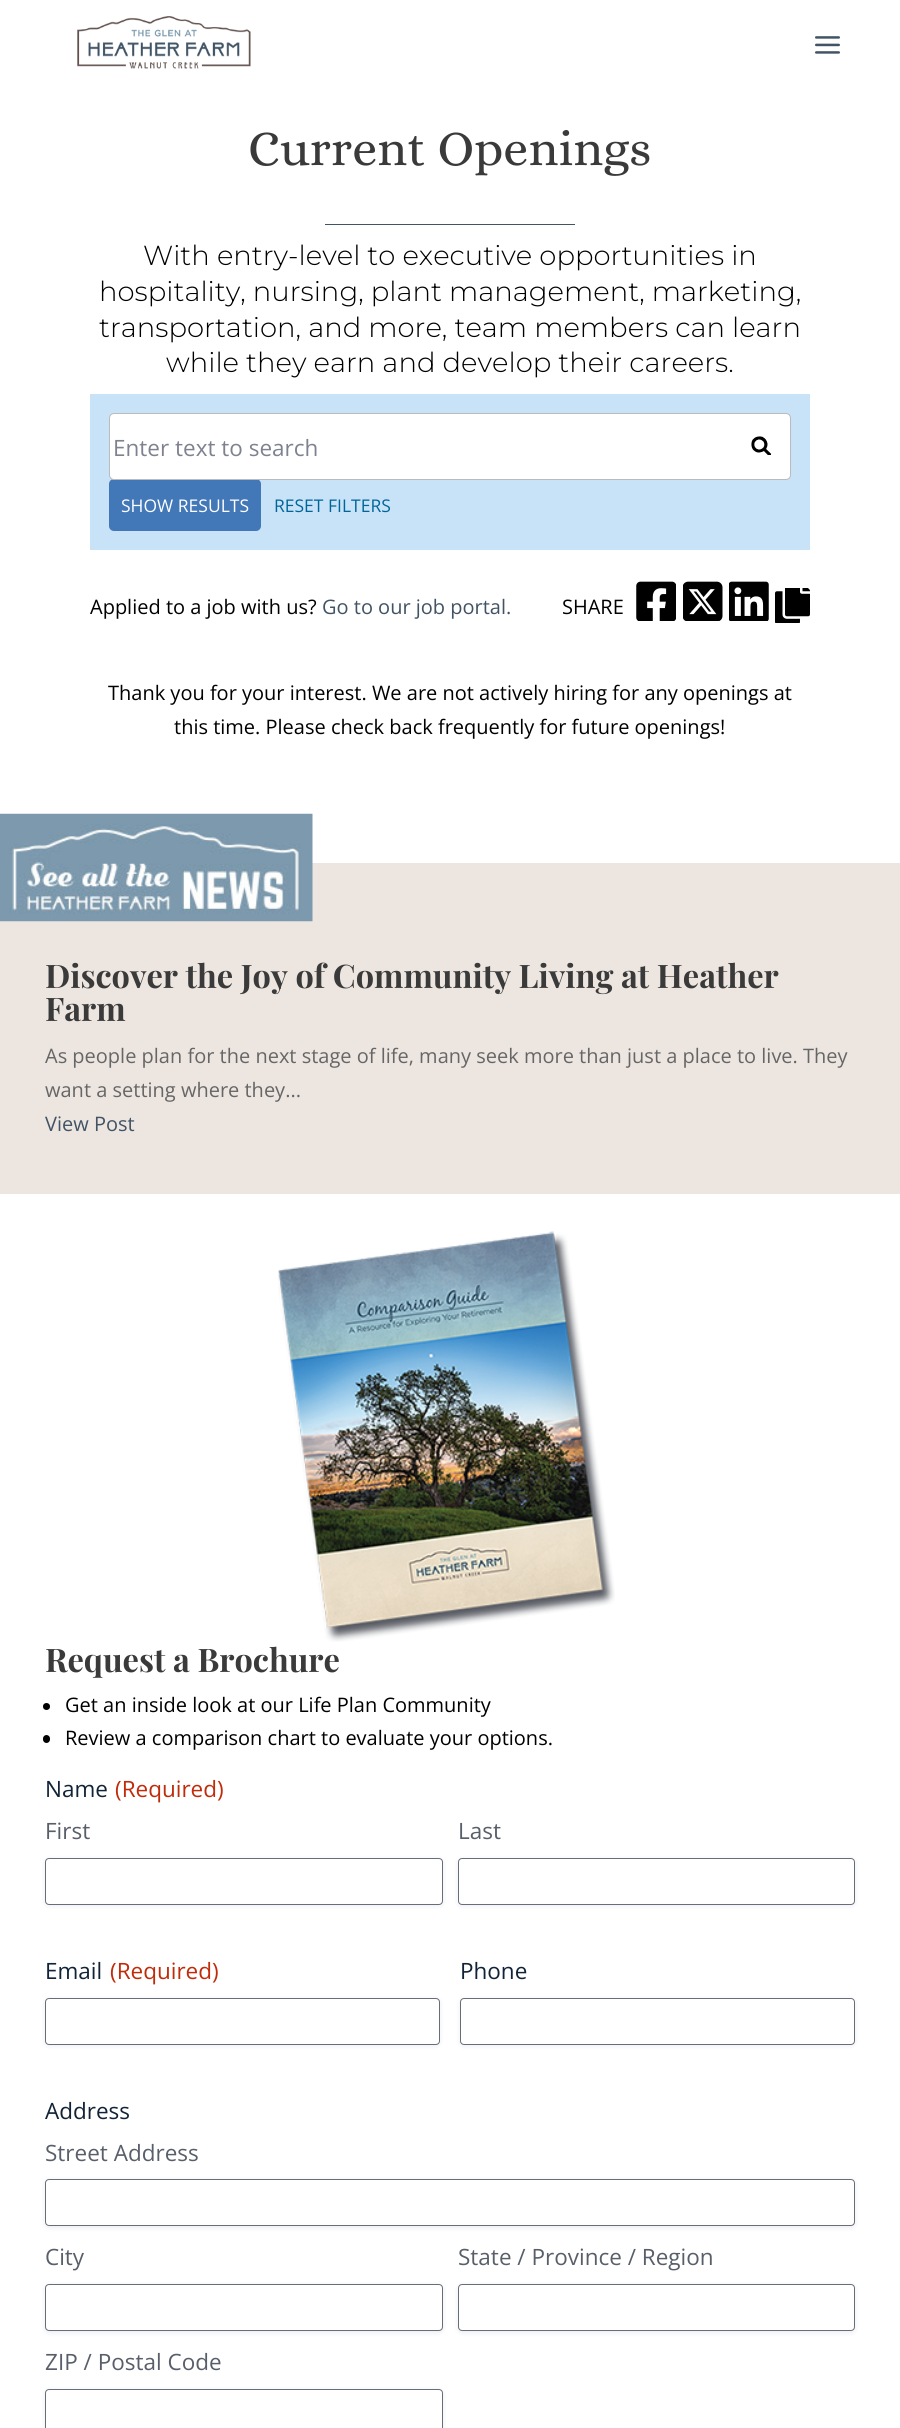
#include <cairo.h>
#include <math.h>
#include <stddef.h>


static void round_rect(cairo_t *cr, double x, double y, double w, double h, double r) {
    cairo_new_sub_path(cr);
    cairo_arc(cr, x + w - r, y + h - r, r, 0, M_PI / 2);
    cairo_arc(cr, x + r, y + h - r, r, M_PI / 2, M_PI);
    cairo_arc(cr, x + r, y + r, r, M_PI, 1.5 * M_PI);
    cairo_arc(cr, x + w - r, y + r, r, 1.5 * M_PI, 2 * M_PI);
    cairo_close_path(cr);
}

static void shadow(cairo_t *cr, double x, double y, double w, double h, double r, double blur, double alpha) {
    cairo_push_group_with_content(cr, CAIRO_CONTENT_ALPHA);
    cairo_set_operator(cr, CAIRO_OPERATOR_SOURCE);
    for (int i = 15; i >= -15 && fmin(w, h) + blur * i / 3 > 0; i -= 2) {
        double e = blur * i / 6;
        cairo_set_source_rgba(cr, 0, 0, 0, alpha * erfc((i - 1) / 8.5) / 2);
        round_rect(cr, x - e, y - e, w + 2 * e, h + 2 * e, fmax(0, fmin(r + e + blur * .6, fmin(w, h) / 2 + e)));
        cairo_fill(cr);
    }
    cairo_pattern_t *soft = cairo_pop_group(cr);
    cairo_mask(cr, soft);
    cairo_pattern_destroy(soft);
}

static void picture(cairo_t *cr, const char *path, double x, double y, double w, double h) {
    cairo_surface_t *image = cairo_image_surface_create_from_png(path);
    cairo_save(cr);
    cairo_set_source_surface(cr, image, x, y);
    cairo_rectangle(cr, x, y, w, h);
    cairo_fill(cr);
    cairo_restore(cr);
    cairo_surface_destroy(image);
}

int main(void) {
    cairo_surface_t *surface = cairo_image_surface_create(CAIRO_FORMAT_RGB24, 900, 2428);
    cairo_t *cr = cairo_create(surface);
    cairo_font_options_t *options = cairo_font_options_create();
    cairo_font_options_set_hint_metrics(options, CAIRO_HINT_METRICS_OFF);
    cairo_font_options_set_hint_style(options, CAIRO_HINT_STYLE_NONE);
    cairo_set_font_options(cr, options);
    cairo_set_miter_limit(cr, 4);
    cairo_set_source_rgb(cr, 1, 1, 1);
    cairo_paint(cr);
    picture(cr, "img1.png", 77, 16, 174, 53);
    picture(cr, "img2.png", 815, 36, 25, 18);
    cairo_select_font_face(cr, "Alice", CAIRO_FONT_SLANT_NORMAL, CAIRO_FONT_WEIGHT_NORMAL);
    cairo_set_font_size(cr, 50);
    cairo_set_source_rgb(cr, 0.227, 0.227, 0.227);
    cairo_move_to(cr, 248, 165);
    cairo_show_text(cr, "Current Openings");
    cairo_set_source_rgb(cr, 0.255, 0.325, 0.392);
    cairo_rectangle(cr, 325, 224, 250, 1);
    cairo_fill(cr);
    cairo_select_font_face(cr, "Montserrat Thin", CAIRO_FONT_SLANT_NORMAL, CAIRO_FONT_WEIGHT_NORMAL);
    cairo_set_font_size(cr, 27.5);
    cairo_set_source_rgb(cr, 0, 0, 0);
    cairo_move_to(cr, 143, 265);
    cairo_show_text(cr, "With entry-level to executive opportunities in");
    cairo_move_to(cr, 99, 301);
    cairo_show_text(cr, "hospitality, nursing, plant management, marketing,");
    cairo_move_to(cr, 99, 337);
    cairo_show_text(cr, "transportation, and more, team members can learn");
    cairo_move_to(cr, 166, 372);
    cairo_show_text(cr, "while they earn and develop their careers.");
    cairo_set_source_rgb(cr, 0.784, 0.89, 0.969);
    cairo_rectangle(cr, 90, 394, 720, 156);
    cairo_fill(cr);
    cairo_set_source_rgb(cr, 0.259, 0.467, 0.722);
    round_rect(cr, 109, 479, 152, 52, 5);
    cairo_fill(cr);
    cairo_set_source_rgb(cr, 1, 1, 1);
    round_rect(cr, 109.5, 413.5, 681, 66, 4.5);
    cairo_fill_preserve(cr);
    cairo_set_source_rgb(cr, 0.733, 0.733, 0.733);
    cairo_set_line_width(cr, 1);
    cairo_stroke(cr);
    cairo_select_font_face(cr, "Open Sans", CAIRO_FONT_SLANT_NORMAL, CAIRO_FONT_WEIGHT_NORMAL);
    cairo_set_font_size(cr, 22.5);
    cairo_set_source_rgb(cr, 0.494, 0.51, 0.565);
    cairo_move_to(cr, 113, 456);
    cairo_show_text(cr, "Enter text to search");
    picture(cr, "img3.png", 751, 436, 20, 19);
    cairo_set_font_size(cr, 17.5);
    cairo_set_source_rgb(cr, 1, 1, 1);
    cairo_move_to(cr, 121, 512);
    cairo_show_text(cr, "SHOW RESULTS");
    cairo_set_source_rgb(cr, 0, 0.4, 0.6);
    cairo_move_to(cr, 274, 512);
    cairo_show_text(cr, "RESET FILTERS");
    cairo_set_font_size(cr, 20);
    cairo_set_source_rgb(cr, 0, 0, 0);
    cairo_move_to(cr, 90, 614);
    cairo_show_text(cr, "Applied to a job with us?");
    cairo_set_source_rgb(cr, 0.255, 0.325, 0.392);
    cairo_move_to(cr, 322, 614);
    cairo_show_text(cr, "Go to our job portal.");
    cairo_set_source_rgb(cr, 0, 0, 0);
    cairo_move_to(cr, 562, 614);
    cairo_show_text(cr, "SHARE");
    picture(cr, "img4.png", 636, 581, 40, 40);
    picture(cr, "img5.png", 683, 581, 40, 40);
    picture(cr, "img6.png", 729, 581, 40, 40);
    picture(cr, "img7.png", 775, 588, 35, 35);
    cairo_move_to(cr, 108, 700);
    cairo_show_text(cr, "Thank you for your interest. We are not actively hiring for any openings at");
    cairo_move_to(cr, 174, 734);
    cairo_show_text(cr, "this time. Please check back frequently for future openings!");
    cairo_set_source_rgb(cr, 0.929, 0.902, 0.878);
    cairo_rectangle(cr, 312, 863, 588, 1);
    cairo_fill(cr);
    cairo_rectangle(cr, 0, 864, 900, 330);
    cairo_fill(cr);
    picture(cr, "img8.png", 0, 813, 313, 109);
    cairo_select_font_face(cr, "Playfair Display", CAIRO_FONT_SLANT_NORMAL, CAIRO_FONT_WEIGHT_BOLD);
    cairo_set_font_size(cr, 32.5);
    cairo_set_source_rgb(cr, 0.227, 0.227, 0.227);
    cairo_move_to(cr, 45, 988);
    cairo_show_text(cr, "Discover the Joy of Community Living at Heather");
    cairo_move_to(cr, 45, 1021);
    cairo_show_text(cr, "Farm");
    cairo_select_font_face(cr, "Open Sans", CAIRO_FONT_SLANT_NORMAL, CAIRO_FONT_WEIGHT_NORMAL);
    cairo_set_font_size(cr, 20);
    cairo_set_source_rgb(cr, 0.4, 0.4, 0.4);
    cairo_move_to(cr, 45, 1063);
    cairo_show_text(cr, "As people plan for the next stage of life, many seek more than just a place to live. They");
    cairo_move_to(cr, 45, 1097);
    cairo_show_text(cr, "want a setting where they...");
    cairo_set_source_rgb(cr, 0.255, 0.325, 0.392);
    cairo_move_to(cr, 45, 1131);
    cairo_show_text(cr, "View Post");
    picture(cr, "img9.png", 278, 1231, 337, 411);
    cairo_select_font_face(cr, "Playfair Display", CAIRO_FONT_SLANT_NORMAL, CAIRO_FONT_WEIGHT_BOLD);
    cairo_set_font_size(cr, 32.5);
    cairo_set_source_rgb(cr, 0.227, 0.227, 0.227);
    cairo_move_to(cr, 45, 1672);
    cairo_show_text(cr, "Request a Brochure");
    cairo_set_source_rgb(cr, 0, 0, 0);
    cairo_new_path(cr);
    cairo_arc(cr, 46.5, 1706.5, 3.5, 0, 2 * M_PI);
    cairo_fill(cr);
    cairo_select_font_face(cr, "Open Sans", CAIRO_FONT_SLANT_NORMAL, CAIRO_FONT_WEIGHT_NORMAL);
    cairo_set_font_size(cr, 20);
    cairo_move_to(cr, 65, 1712);
    cairo_show_text(cr, "Get an inside look at our Life Plan Community");
    round_rect(cr, 43, 1735, 7, 8, 3.5);
    cairo_fill(cr);
    cairo_move_to(cr, 65, 1745);
    cairo_show_text(cr, "Review a comparison chart to evaluate your options.");
    cairo_set_font_size(cr, 22.5);
    cairo_set_source_rgb(cr, 0.067, 0.137, 0.216);
    cairo_move_to(cr, 45, 1797);
    cairo_show_text(cr, "Name");
    cairo_set_source_rgb(cr, 0.753, 0.169, 0.039);
    cairo_move_to(cr, 115, 1797);
    cairo_show_text(cr, "(Required)");
    cairo_set_source_rgb(cr, 0.345, 0.369, 0.416);
    cairo_move_to(cr, 45, 1839);
    cairo_show_text(cr, "First");
    cairo_set_source_rgb(cr, 0.071, 0.098, 0.38);
    shadow(cr, 45, 1859, 398, 47, 4, 2.5, 0.08);
    cairo_set_source_rgb(cr, 1, 1, 1);
    round_rect(cr, 45.5, 1858.5, 397, 46, 3.5);
    cairo_fill_preserve(cr);
    cairo_set_source_rgb(cr, 0.408, 0.431, 0.467);
    cairo_stroke(cr);
    cairo_set_source_rgb(cr, 0.345, 0.369, 0.416);
    cairo_move_to(cr, 458, 1839);
    cairo_show_text(cr, "Last");
    cairo_set_source_rgb(cr, 0.071, 0.098, 0.38);
    shadow(cr, 458, 1859, 397, 47, 4, 2.5, 0.08);
    cairo_set_source_rgb(cr, 1, 1, 1);
    round_rect(cr, 458.5, 1858.5, 396, 46, 3.5);
    cairo_fill_preserve(cr);
    cairo_set_source_rgb(cr, 0.408, 0.431, 0.467);
    cairo_stroke(cr);
    cairo_set_source_rgb(cr, 0.067, 0.137, 0.216);
    cairo_move_to(cr, 45, 1979);
    cairo_show_text(cr, "Email");
    cairo_set_source_rgb(cr, 0.753, 0.169, 0.039);
    cairo_move_to(cr, 110, 1979);
    cairo_show_text(cr, "(Required)");
    cairo_set_source_rgb(cr, 0.071, 0.098, 0.38);
    shadow(cr, 45, 1999, 395, 47, 4, 2.5, 0.08);
    cairo_set_source_rgb(cr, 1, 1, 1);
    round_rect(cr, 45.5, 1998.5, 394, 46, 3.5);
    cairo_fill_preserve(cr);
    cairo_set_source_rgb(cr, 0.408, 0.431, 0.467);
    cairo_stroke(cr);
    cairo_set_source_rgb(cr, 0.067, 0.137, 0.216);
    cairo_move_to(cr, 460, 1979);
    cairo_show_text(cr, "Phone");
    cairo_set_source_rgb(cr, 0.071, 0.098, 0.38);
    shadow(cr, 460, 1999, 395, 47, 4, 2.5, 0.08);
    cairo_set_source_rgb(cr, 1, 1, 1);
    round_rect(cr, 460.5, 1998.5, 394, 46, 3.5);
    cairo_fill_preserve(cr);
    cairo_set_source_rgb(cr, 0.408, 0.431, 0.467);
    cairo_stroke(cr);
    cairo_set_source_rgb(cr, 0.067, 0.137, 0.216);
    cairo_move_to(cr, 45, 2119);
    cairo_show_text(cr, "Address");
    cairo_set_source_rgb(cr, 0.345, 0.369, 0.416);
    cairo_move_to(cr, 45, 2161);
    cairo_show_text(cr, "Street Address");
    cairo_save(cr);
    cairo_set_fill_rule(cr, CAIRO_FILL_RULE_EVEN_ODD);
    cairo_new_path(cr);
    cairo_move_to(cr, 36, 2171);
    cairo_line_to(cr, 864, 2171);
    cairo_line_to(cr, 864, 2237);
    cairo_line_to(cr, 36, 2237);
    cairo_close_path(cr);
    cairo_move_to(cr, 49, 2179);
    cairo_line_to(cr, 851, 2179);
    cairo_curve_to(cr, 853, 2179, 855, 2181, 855, 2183);
    cairo_line_to(cr, 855, 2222);
    cairo_curve_to(cr, 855, 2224, 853, 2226, 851, 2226);
    cairo_line_to(cr, 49, 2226);
    cairo_curve_to(cr, 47, 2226, 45, 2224, 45, 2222);
    cairo_line_to(cr, 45, 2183);
    cairo_curve_to(cr, 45, 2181, 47, 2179, 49, 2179);
    cairo_close_path(cr);
    cairo_clip(cr);
    cairo_set_source_rgb(cr, 0.071, 0.098, 0.38);
    shadow(cr, 45, 2180, 810, 48, 4, 2.5, 0.08);
    cairo_restore(cr);
    round_rect(cr, 45.5, 2179.5, 809, 46, 3.5);
    cairo_set_source_rgb(cr, 0.408, 0.431, 0.467);
    cairo_stroke(cr);
    cairo_set_source_rgb(cr, 0.345, 0.369, 0.416);
    cairo_move_to(cr, 45, 2265);
    cairo_show_text(cr, "City");
    cairo_set_source_rgb(cr, 0.071, 0.098, 0.38);
    shadow(cr, 45, 2285, 398, 48, 4, 2.5, 0.08);
    cairo_set_source_rgb(cr, 1, 1, 1);
    round_rect(cr, 45.5, 2284.5, 397, 46, 3.5);
    cairo_fill_preserve(cr);
    cairo_set_source_rgb(cr, 0.408, 0.431, 0.467);
    cairo_stroke(cr);
    cairo_set_source_rgb(cr, 0.345, 0.369, 0.416);
    cairo_move_to(cr, 458, 2265);
    cairo_show_text(cr, "State / Province / Region");
    cairo_save(cr);
    cairo_set_fill_rule(cr, CAIRO_FILL_RULE_EVEN_ODD);
    cairo_new_path(cr);
    cairo_move_to(cr, 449, 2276);
    cairo_line_to(cr, 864, 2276);
    cairo_line_to(cr, 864, 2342);
    cairo_line_to(cr, 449, 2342);
    cairo_close_path(cr);
    cairo_move_to(cr, 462, 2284);
    cairo_line_to(cr, 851, 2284);
    cairo_curve_to(cr, 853, 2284, 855, 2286, 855, 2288);
    cairo_line_to(cr, 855, 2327);
    cairo_curve_to(cr, 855, 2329, 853, 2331, 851, 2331);
    cairo_line_to(cr, 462, 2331);
    cairo_curve_to(cr, 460, 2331, 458, 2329, 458, 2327);
    cairo_line_to(cr, 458, 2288);
    cairo_curve_to(cr, 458, 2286, 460, 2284, 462, 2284);
    cairo_close_path(cr);
    cairo_clip(cr);
    cairo_set_source_rgb(cr, 0.071, 0.098, 0.38);
    shadow(cr, 458, 2285, 397, 48, 4, 2.5, 0.08);
    cairo_restore(cr);
    round_rect(cr, 458.5, 2284.5, 396, 46, 3.5);
    cairo_set_source_rgb(cr, 0.408, 0.431, 0.467);
    cairo_stroke(cr);
    cairo_set_source_rgb(cr, 0.345, 0.369, 0.416);
    cairo_move_to(cr, 45, 2370);
    cairo_show_text(cr, "ZIP / Postal Code");
    cairo_set_source_rgb(cr, 0.071, 0.098, 0.38);
    shadow(cr, 45, 2390, 398, 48, 4, 2.5, 0.08);
    cairo_set_source_rgb(cr, 1, 1, 1);
    round_rect(cr, 45.5, 2389.5, 397, 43, 3.5);
    cairo_fill_preserve(cr);
    cairo_set_source_rgb(cr, 0.408, 0.431, 0.467);
    cairo_stroke(cr);
    cairo_surface_write_to_png(surface, "page.png");
    cairo_font_options_destroy(options);
    cairo_destroy(cr);
    cairo_surface_destroy(surface);
    return 0;
}
